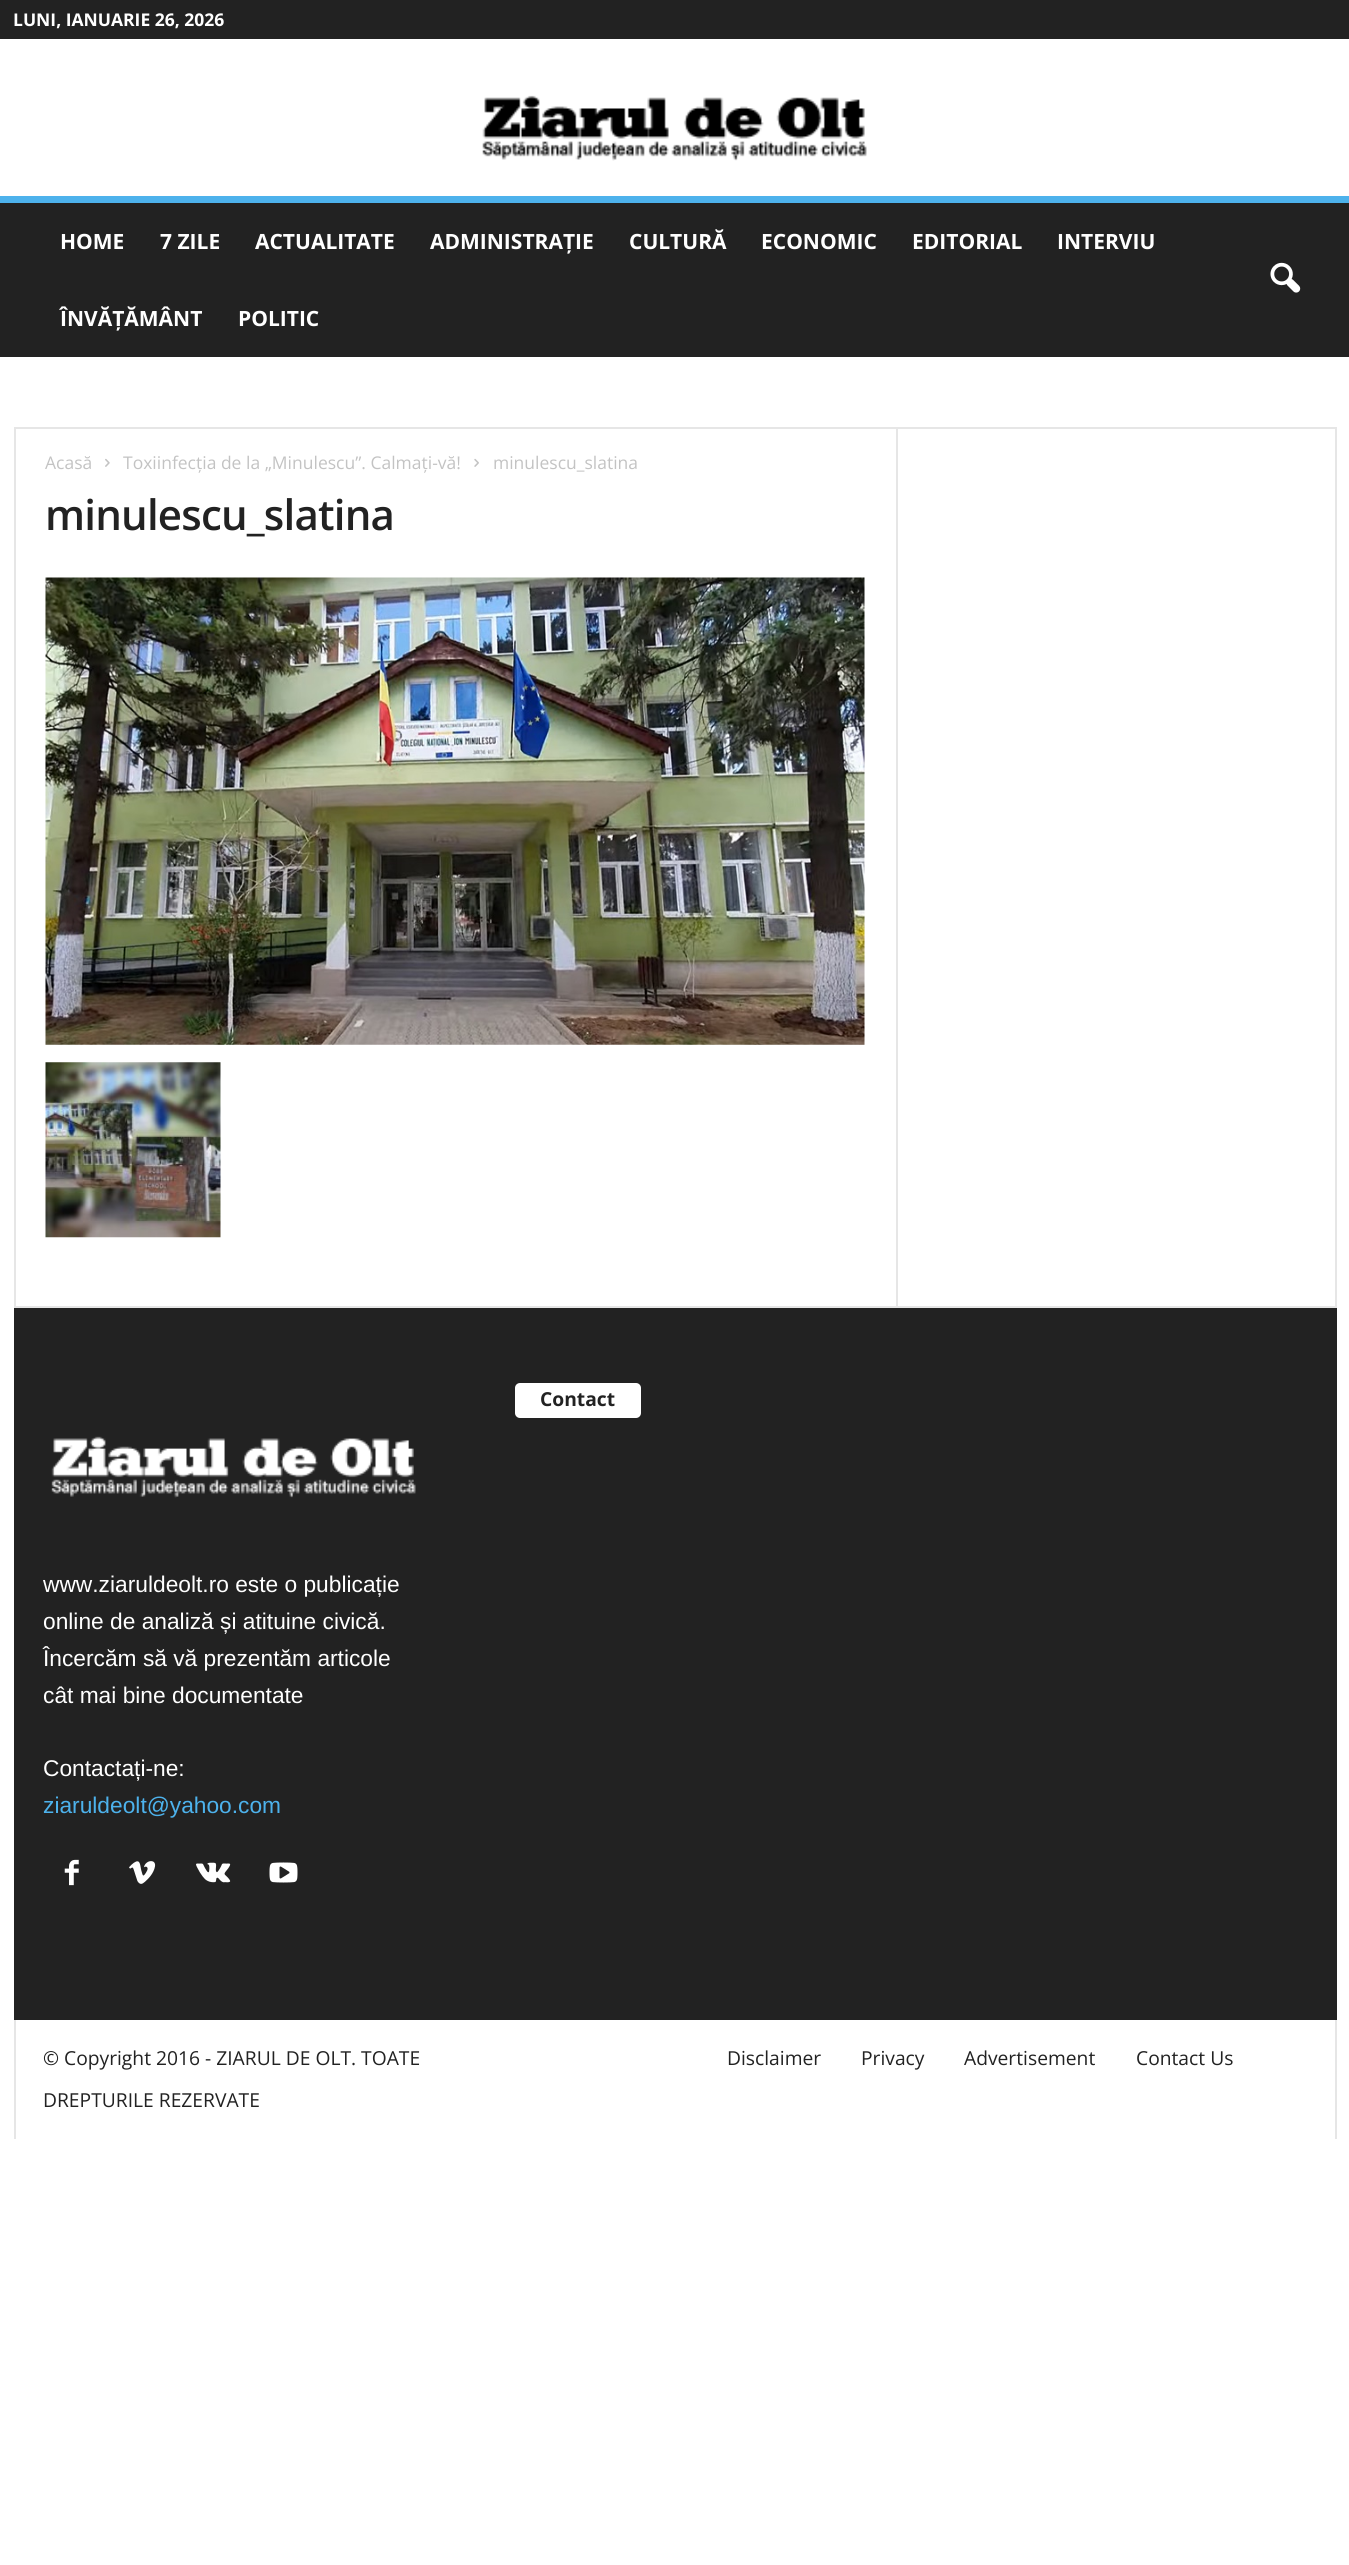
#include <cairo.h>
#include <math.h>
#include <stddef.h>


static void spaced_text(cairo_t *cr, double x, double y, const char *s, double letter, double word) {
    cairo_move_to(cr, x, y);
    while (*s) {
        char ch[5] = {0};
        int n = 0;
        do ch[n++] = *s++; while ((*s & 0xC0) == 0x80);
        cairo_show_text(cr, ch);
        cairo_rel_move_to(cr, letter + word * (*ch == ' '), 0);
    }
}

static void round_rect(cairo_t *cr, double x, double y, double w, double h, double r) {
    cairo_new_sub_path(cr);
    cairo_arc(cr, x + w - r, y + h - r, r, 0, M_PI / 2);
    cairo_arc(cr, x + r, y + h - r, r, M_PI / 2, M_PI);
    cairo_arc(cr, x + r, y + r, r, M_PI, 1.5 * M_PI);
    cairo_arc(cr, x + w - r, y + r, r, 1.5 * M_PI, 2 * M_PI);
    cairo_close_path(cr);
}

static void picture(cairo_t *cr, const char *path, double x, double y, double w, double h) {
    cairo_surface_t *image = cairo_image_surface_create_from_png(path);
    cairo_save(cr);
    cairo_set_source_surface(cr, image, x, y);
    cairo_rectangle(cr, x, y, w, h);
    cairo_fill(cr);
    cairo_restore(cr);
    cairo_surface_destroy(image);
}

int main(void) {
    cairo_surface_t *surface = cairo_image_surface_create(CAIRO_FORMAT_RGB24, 1349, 2565);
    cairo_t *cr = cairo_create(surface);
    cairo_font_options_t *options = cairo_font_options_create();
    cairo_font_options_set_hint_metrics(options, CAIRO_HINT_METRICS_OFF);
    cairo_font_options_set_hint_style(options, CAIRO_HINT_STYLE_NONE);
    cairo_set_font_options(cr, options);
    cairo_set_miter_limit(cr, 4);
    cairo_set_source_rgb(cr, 1, 1, 1);
    cairo_paint(cr);
    cairo_set_source_rgb(cr, 0.133, 0.133, 0.133);
    cairo_rectangle(cr, 0, 0, 1349, 39);
    cairo_fill(cr);
    cairo_select_font_face(cr, "Open Sans", CAIRO_FONT_SLANT_NORMAL, CAIRO_FONT_WEIGHT_BOLD);
    cairo_set_font_size(cr, 17.5);
    cairo_set_source_rgb(cr, 1, 1, 1);
    cairo_move_to(cr, 13, 26);
    cairo_show_text(cr, "LUNI, IANUARIE 26, 2026");
    picture(cr, "img1.png", 482, 95, 385, 66);
    cairo_set_source_rgb(cr, 0.133, 0.133, 0.133);
    cairo_rectangle(cr, 0, 203, 1349, 154);
    cairo_fill(cr);
    cairo_set_source_rgb(cr, 0.302, 0.698, 0.925);
    cairo_rectangle(cr, 0, 196, 1349, 7);
    cairo_fill(cr);
    cairo_set_font_size(cr, 21);
    cairo_set_source_rgb(cr, 1, 1, 1);
    cairo_move_to(cr, 60, 249);
    cairo_show_text(cr, "HOME");
    cairo_move_to(cr, 160, 249);
    cairo_show_text(cr, "7 ZILE");
    cairo_move_to(cr, 255, 249);
    cairo_show_text(cr, "ACTUALITATE");
    cairo_move_to(cr, 430, 249);
    cairo_show_text(cr, "ADMINISTRAȚIE");
    cairo_move_to(cr, 629, 249);
    cairo_show_text(cr, "CULTURĂ");
    cairo_move_to(cr, 761, 249);
    cairo_show_text(cr, "ECONOMIC");
    cairo_move_to(cr, 912, 249);
    cairo_show_text(cr, "EDITORIAL");
    cairo_move_to(cr, 1057, 249);
    cairo_show_text(cr, "INTERVIU");
    cairo_move_to(cr, 60, 326);
    cairo_show_text(cr, "ÎNVĂȚĂMÂNT");
    cairo_move_to(cr, 238, 326);
    cairo_show_text(cr, "POLITIC");
    picture(cr, "img2.png", 1270, 262, 31, 31);
    cairo_set_source_rgb(cr, 0.902, 0.902, 0.902);
    cairo_rectangle(cr, 14, 427, 1323, 2);
    cairo_fill(cr);
    cairo_rectangle(cr, 14, 1306, 1323, 2);
    cairo_fill(cr);
    cairo_rectangle(cr, 14, 429, 2, 877);
    cairo_fill(cr);
    cairo_select_font_face(cr, "Open Sans", CAIRO_FONT_SLANT_NORMAL, CAIRO_FONT_WEIGHT_NORMAL);
    cairo_set_font_size(cr, 17.5);
    cairo_set_source_rgb(cr, 0.765, 0.765, 0.765);
    cairo_move_to(cr, 45, 469);
    cairo_show_text(cr, "Acasă");
    picture(cr, "img3.png", 105, 458, 5, 9);
    cairo_move_to(cr, 123, 469);
    cairo_show_text(cr, "Toxiinfecția de la „Minulescu”. Calmați-vă!");
    picture(cr, "img4.png", 474, 458, 5, 9);
    cairo_move_to(cr, 493, 469);
    cairo_show_text(cr, "minulescu_slatina");
    cairo_select_font_face(cr, "Open Sans SemiBold", CAIRO_FONT_SLANT_NORMAL, CAIRO_FONT_WEIGHT_NORMAL);
    cairo_set_font_size(cr, 42);
    cairo_set_source_rgb(cr, 0.133, 0.133, 0.133);
    spaced_text(cr, 45, 530, "minulescu_slatina", -0.8, 0);
    picture(cr, "img5.png", 45, 577, 820, 468);
    picture(cr, "img6.png", 45, 1062, 176, 176);
    cairo_set_source_rgb(cr, 0.902, 0.902, 0.902);
    cairo_rectangle(cr, 896, 429, 2, 877);
    cairo_fill(cr);
    cairo_rectangle(cr, 1335, 429, 2, 877);
    cairo_fill(cr);
    cairo_set_source_rgb(cr, 0.133, 0.133, 0.133);
    cairo_rectangle(cr, 14, 1308, 1323, 712);
    cairo_fill(cr);
    cairo_set_source_rgb(cr, 1, 1, 1);
    round_rect(cr, 515, 1383, 126, 35, 5);
    cairo_fill(cr);
    cairo_select_font_face(cr, "Open Sans", CAIRO_FONT_SLANT_NORMAL, CAIRO_FONT_WEIGHT_BOLD);
    cairo_set_font_size(cr, 19.25);
    cairo_set_source_rgb(cr, 0.133, 0.133, 0.133);
    cairo_move_to(cr, 540, 1406);
    cairo_show_text(cr, "Contact");
    picture(cr, "img7.png", 51, 1436, 365, 62);
    cairo_select_font_face(cr, "Liberation Sans", CAIRO_FONT_SLANT_NORMAL, CAIRO_FONT_WEIGHT_NORMAL);
    cairo_set_font_size(cr, 22.75);
    cairo_set_source_rgb(cr, 1, 1, 1);
    cairo_move_to(cr, 43, 1592);
    cairo_show_text(cr, "www.ziaruldeolt.ro este o publicație");
    cairo_move_to(cr, 43, 1629);
    cairo_show_text(cr, "online de analiză și atituine civică.");
    cairo_move_to(cr, 43, 1666);
    cairo_show_text(cr, "Încercăm să vă prezentăm articole");
    cairo_move_to(cr, 43, 1703);
    cairo_show_text(cr, "cât mai bine documentate");
    cairo_move_to(cr, 43, 1776);
    cairo_show_text(cr, "Contactați-ne:");
    cairo_set_source_rgb(cr, 0.302, 0.698, 0.925);
    cairo_move_to(cr, 43, 1813);
    cairo_show_text(cr, "ziaruldeolt@yahoo.com");
    picture(cr, "img8.png", 64, 1859, 15, 27);
    picture(cr, "img9.png", 129, 1861, 27, 23);
    picture(cr, "img10.png", 196, 1862, 35, 21);
    picture(cr, "img11.png", 269, 1862, 29, 21);
    cairo_set_source_rgb(cr, 0.902, 0.902, 0.902);
    cairo_rectangle(cr, 14, 2020, 2, 119);
    cairo_fill(cr);
    cairo_select_font_face(cr, "Open Sans", CAIRO_FONT_SLANT_NORMAL, CAIRO_FONT_WEIGHT_NORMAL);
    cairo_set_font_size(cr, 19.25);
    cairo_set_source_rgb(cr, 0.133, 0.133, 0.133);
    cairo_move_to(cr, 43, 2065);
    cairo_show_text(cr, "© Copyright 2016 - ZIARUL DE OLT. TOATE");
    cairo_move_to(cr, 43, 2107);
    cairo_show_text(cr, "DREPTURILE REZERVATE");
    cairo_move_to(cr, 727, 2065);
    cairo_show_text(cr, "Disclaimer");
    cairo_move_to(cr, 861, 2065);
    cairo_show_text(cr, "Privacy");
    cairo_move_to(cr, 964, 2065);
    cairo_show_text(cr, "Advertisement");
    cairo_move_to(cr, 1136, 2065);
    cairo_show_text(cr, "Contact Us");
    cairo_set_source_rgb(cr, 0.902, 0.902, 0.902);
    cairo_rectangle(cr, 1335, 2020, 2, 119);
    cairo_fill(cr);
    cairo_surface_write_to_png(surface, "page.png");
    cairo_font_options_destroy(options);
    cairo_destroy(cr);
    cairo_surface_destroy(surface);
    return 0;
}
